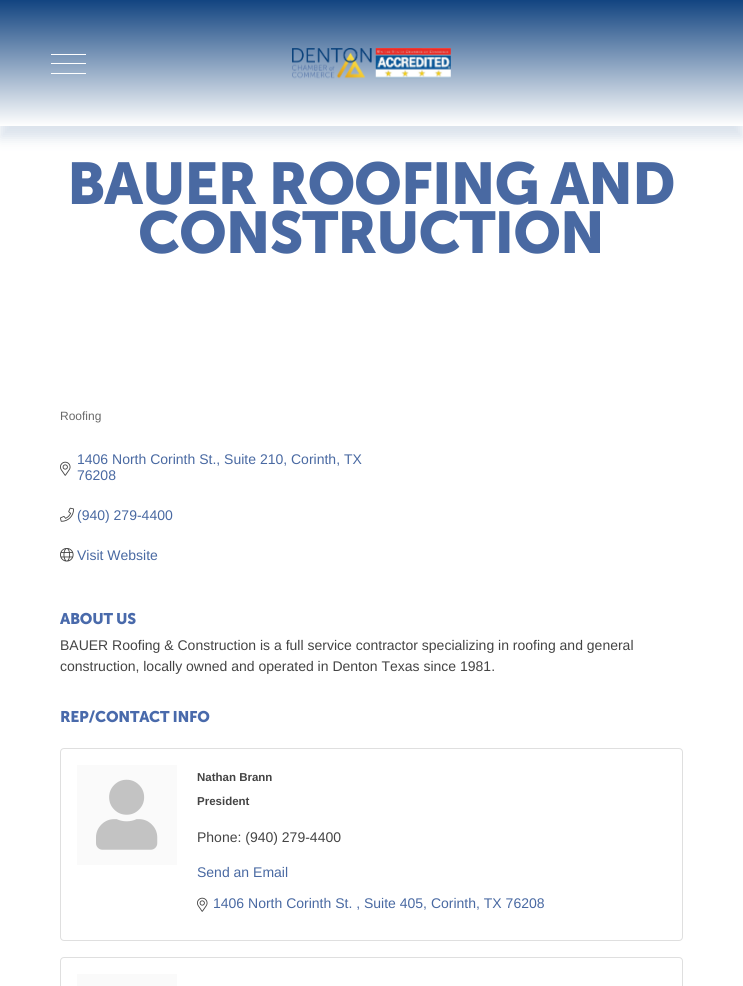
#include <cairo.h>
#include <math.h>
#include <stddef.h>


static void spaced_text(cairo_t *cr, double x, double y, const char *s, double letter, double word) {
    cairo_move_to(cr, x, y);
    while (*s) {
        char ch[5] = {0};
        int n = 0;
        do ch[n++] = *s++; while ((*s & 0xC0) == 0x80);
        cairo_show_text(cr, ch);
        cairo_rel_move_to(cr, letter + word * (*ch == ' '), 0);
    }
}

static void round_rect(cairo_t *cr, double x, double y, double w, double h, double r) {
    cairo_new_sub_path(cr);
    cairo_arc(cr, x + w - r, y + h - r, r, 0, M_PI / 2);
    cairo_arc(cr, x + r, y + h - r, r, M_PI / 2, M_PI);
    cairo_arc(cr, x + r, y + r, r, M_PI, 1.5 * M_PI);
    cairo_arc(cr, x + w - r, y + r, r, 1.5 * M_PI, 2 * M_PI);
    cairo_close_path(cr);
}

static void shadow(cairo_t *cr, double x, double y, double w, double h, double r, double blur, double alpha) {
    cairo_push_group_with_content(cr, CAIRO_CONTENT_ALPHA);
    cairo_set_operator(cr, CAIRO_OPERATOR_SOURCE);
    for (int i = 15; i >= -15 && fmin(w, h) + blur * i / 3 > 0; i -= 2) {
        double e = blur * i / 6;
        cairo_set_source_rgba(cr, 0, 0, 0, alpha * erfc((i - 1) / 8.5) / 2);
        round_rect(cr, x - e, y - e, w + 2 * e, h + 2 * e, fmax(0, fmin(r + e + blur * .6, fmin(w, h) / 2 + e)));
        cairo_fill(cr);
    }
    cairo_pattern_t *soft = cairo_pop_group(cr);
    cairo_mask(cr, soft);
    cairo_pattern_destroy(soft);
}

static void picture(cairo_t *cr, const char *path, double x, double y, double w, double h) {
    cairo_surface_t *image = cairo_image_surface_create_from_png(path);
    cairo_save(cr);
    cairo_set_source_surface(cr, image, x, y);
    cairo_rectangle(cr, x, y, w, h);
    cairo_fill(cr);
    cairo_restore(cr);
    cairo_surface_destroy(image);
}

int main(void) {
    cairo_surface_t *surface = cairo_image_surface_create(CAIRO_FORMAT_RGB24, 743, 986);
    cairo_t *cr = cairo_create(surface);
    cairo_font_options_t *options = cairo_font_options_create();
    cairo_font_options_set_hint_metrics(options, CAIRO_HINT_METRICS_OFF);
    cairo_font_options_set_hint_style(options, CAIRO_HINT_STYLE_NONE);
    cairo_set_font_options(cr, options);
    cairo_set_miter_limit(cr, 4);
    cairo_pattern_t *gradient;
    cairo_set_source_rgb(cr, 1, 1, 1);
    cairo_paint(cr);
    cairo_set_source_rgb(cr, 0.859, 0.89, 0.925);
    shadow(cr, 0, 12, 743, 126, 0, 6, 1);
    gradient = cairo_pattern_create_linear(372, 0, 372, 126);
    cairo_pattern_add_color_stop_rgba(gradient, 0, 0.071, 0.267, 0.502, 1);
    cairo_pattern_add_color_stop_rgba(gradient, 1, 1, 1, 1, 1);
    cairo_set_source(cr, gradient);
    cairo_pattern_destroy(gradient);
    cairo_rectangle(cr, 0, 0, 743, 126);
    cairo_fill(cr);
    cairo_set_source_rgb(cr, 1, 1, 1);
    cairo_rectangle(cr, 51, 54, 35, 1);
    cairo_fill(cr);
    cairo_rectangle(cr, 51, 63, 35, 1);
    cairo_fill(cr);
    cairo_rectangle(cr, 51, 73, 35, 1);
    cairo_fill(cr);
    picture(cr, "img1.png", 292, 48, 159, 31);
    cairo_select_font_face(cr, "Museo Sans", CAIRO_FONT_SLANT_NORMAL, CAIRO_FONT_WEIGHT_BOLD);
    cairo_set_font_size(cr, 58.5);
    cairo_set_source_rgb(cr, 0.286, 0.412, 0.635);
    spaced_text(cr, 67, 204, "BAUER ROOFING AND", -1.2, 0);
    spaced_text(cr, 138, 253, "CONSTRUCTION", -1.2, 0);
    cairo_select_font_face(cr, "Liberation Sans", CAIRO_FONT_SLANT_NORMAL, CAIRO_FONT_WEIGHT_NORMAL);
    cairo_set_font_size(cr, 12);
    cairo_set_source_rgb(cr, 0.412, 0.412, 0.412);
    cairo_move_to(cr, 60, 420);
    cairo_show_text(cr, "Roofing");
    cairo_set_font_size(cr, 14);
    cairo_set_source_rgb(cr, 0.286, 0.412, 0.635);
    cairo_move_to(cr, 77, 464);
    cairo_show_text(cr, "1406 North Corinth St., Suite 210, Corinth, TX");
    picture(cr, "img2.png", 60, 461, 11, 15);
    cairo_move_to(cr, 77, 480);
    cairo_show_text(cr, "76208");
    picture(cr, "img3.png", 60, 507, 14, 15);
    cairo_move_to(cr, 77, 520);
    cairo_show_text(cr, "(940) 279-4400");
    picture(cr, "img4.png", 60, 548, 14, 14);
    cairo_move_to(cr, 77, 560);
    cairo_show_text(cr, "Visit Website");
    cairo_select_font_face(cr, "Museo Sans", CAIRO_FONT_SLANT_NORMAL, CAIRO_FONT_WEIGHT_BOLD);
    cairo_set_font_size(cr, 15.4);
    cairo_set_source_rgb(cr, 0.286, 0.416, 0.671);
    spaced_text(cr, 60, 624, "ABOUT US", -0.25, 0);
    cairo_select_font_face(cr, "Liberation Sans", CAIRO_FONT_SLANT_NORMAL, CAIRO_FONT_WEIGHT_NORMAL);
    cairo_set_font_size(cr, 14);
    cairo_set_source_rgb(cr, 0.267, 0.267, 0.267);
    cairo_move_to(cr, 60, 650);
    cairo_show_text(cr, "BAUER Roofing & Construction is a full service contractor specializing in roofing and general");
    cairo_move_to(cr, 60, 671);
    cairo_show_text(cr, "construction, locally owned and operated in Denton Texas since 1981.");
    cairo_select_font_face(cr, "Museo Sans", CAIRO_FONT_SLANT_NORMAL, CAIRO_FONT_WEIGHT_BOLD);
    cairo_set_font_size(cr, 15.4);
    cairo_set_source_rgb(cr, 0.286, 0.416, 0.671);
    spaced_text(cr, 60, 722, "REP/CONTACT INFO", -0.25, 0);
    round_rect(cr, 60.5, 748.5, 622, 192, 3.5);
    cairo_set_source_rgb(cr, 0.875, 0.875, 0.875);
    cairo_set_line_width(cr, 1);
    cairo_stroke(cr);
    cairo_set_source_rgb(cr, 0.98, 0.98, 0.98);
    cairo_rectangle(cr, 77, 765, 100, 100);
    cairo_fill(cr);
    picture(cr, "img5.png", 96, 779, 62, 71);
    cairo_select_font_face(cr, "Liberation Sans", CAIRO_FONT_SLANT_NORMAL, CAIRO_FONT_WEIGHT_BOLD);
    cairo_set_font_size(cr, 11.5);
    cairo_set_source_rgb(cr, 0.267, 0.267, 0.267);
    cairo_move_to(cr, 197, 781);
    cairo_show_text(cr, "Nathan Brann");
    cairo_move_to(cr, 197, 805);
    cairo_show_text(cr, "President");
    cairo_select_font_face(cr, "Liberation Sans", CAIRO_FONT_SLANT_NORMAL, CAIRO_FONT_WEIGHT_NORMAL);
    cairo_set_font_size(cr, 14);
    cairo_move_to(cr, 197, 842);
    cairo_show_text(cr, "Phone: (940) 279-4400");
    cairo_set_source_rgb(cr, 0.286, 0.412, 0.635);
    cairo_move_to(cr, 197, 877);
    cairo_show_text(cr, "Send an Email");
    picture(cr, "img2.png", 197, 897, 11, 15);
    cairo_move_to(cr, 213, 908);
    cairo_show_text(cr, "1406 North Corinth St. , Suite 405, Corinth, TX 76208");
    round_rect(cr, 60.5, 957.5, 622, 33, 3.5);
    cairo_set_source_rgb(cr, 0.875, 0.875, 0.875);
    cairo_stroke(cr);
    cairo_set_source_rgb(cr, 0.98, 0.98, 0.98);
    cairo_rectangle(cr, 77, 974, 100, 12);
    cairo_fill(cr);
    cairo_surface_write_to_png(surface, "page.png");
    cairo_font_options_destroy(options);
    cairo_destroy(cr);
    cairo_surface_destroy(surface);
    return 0;
}
